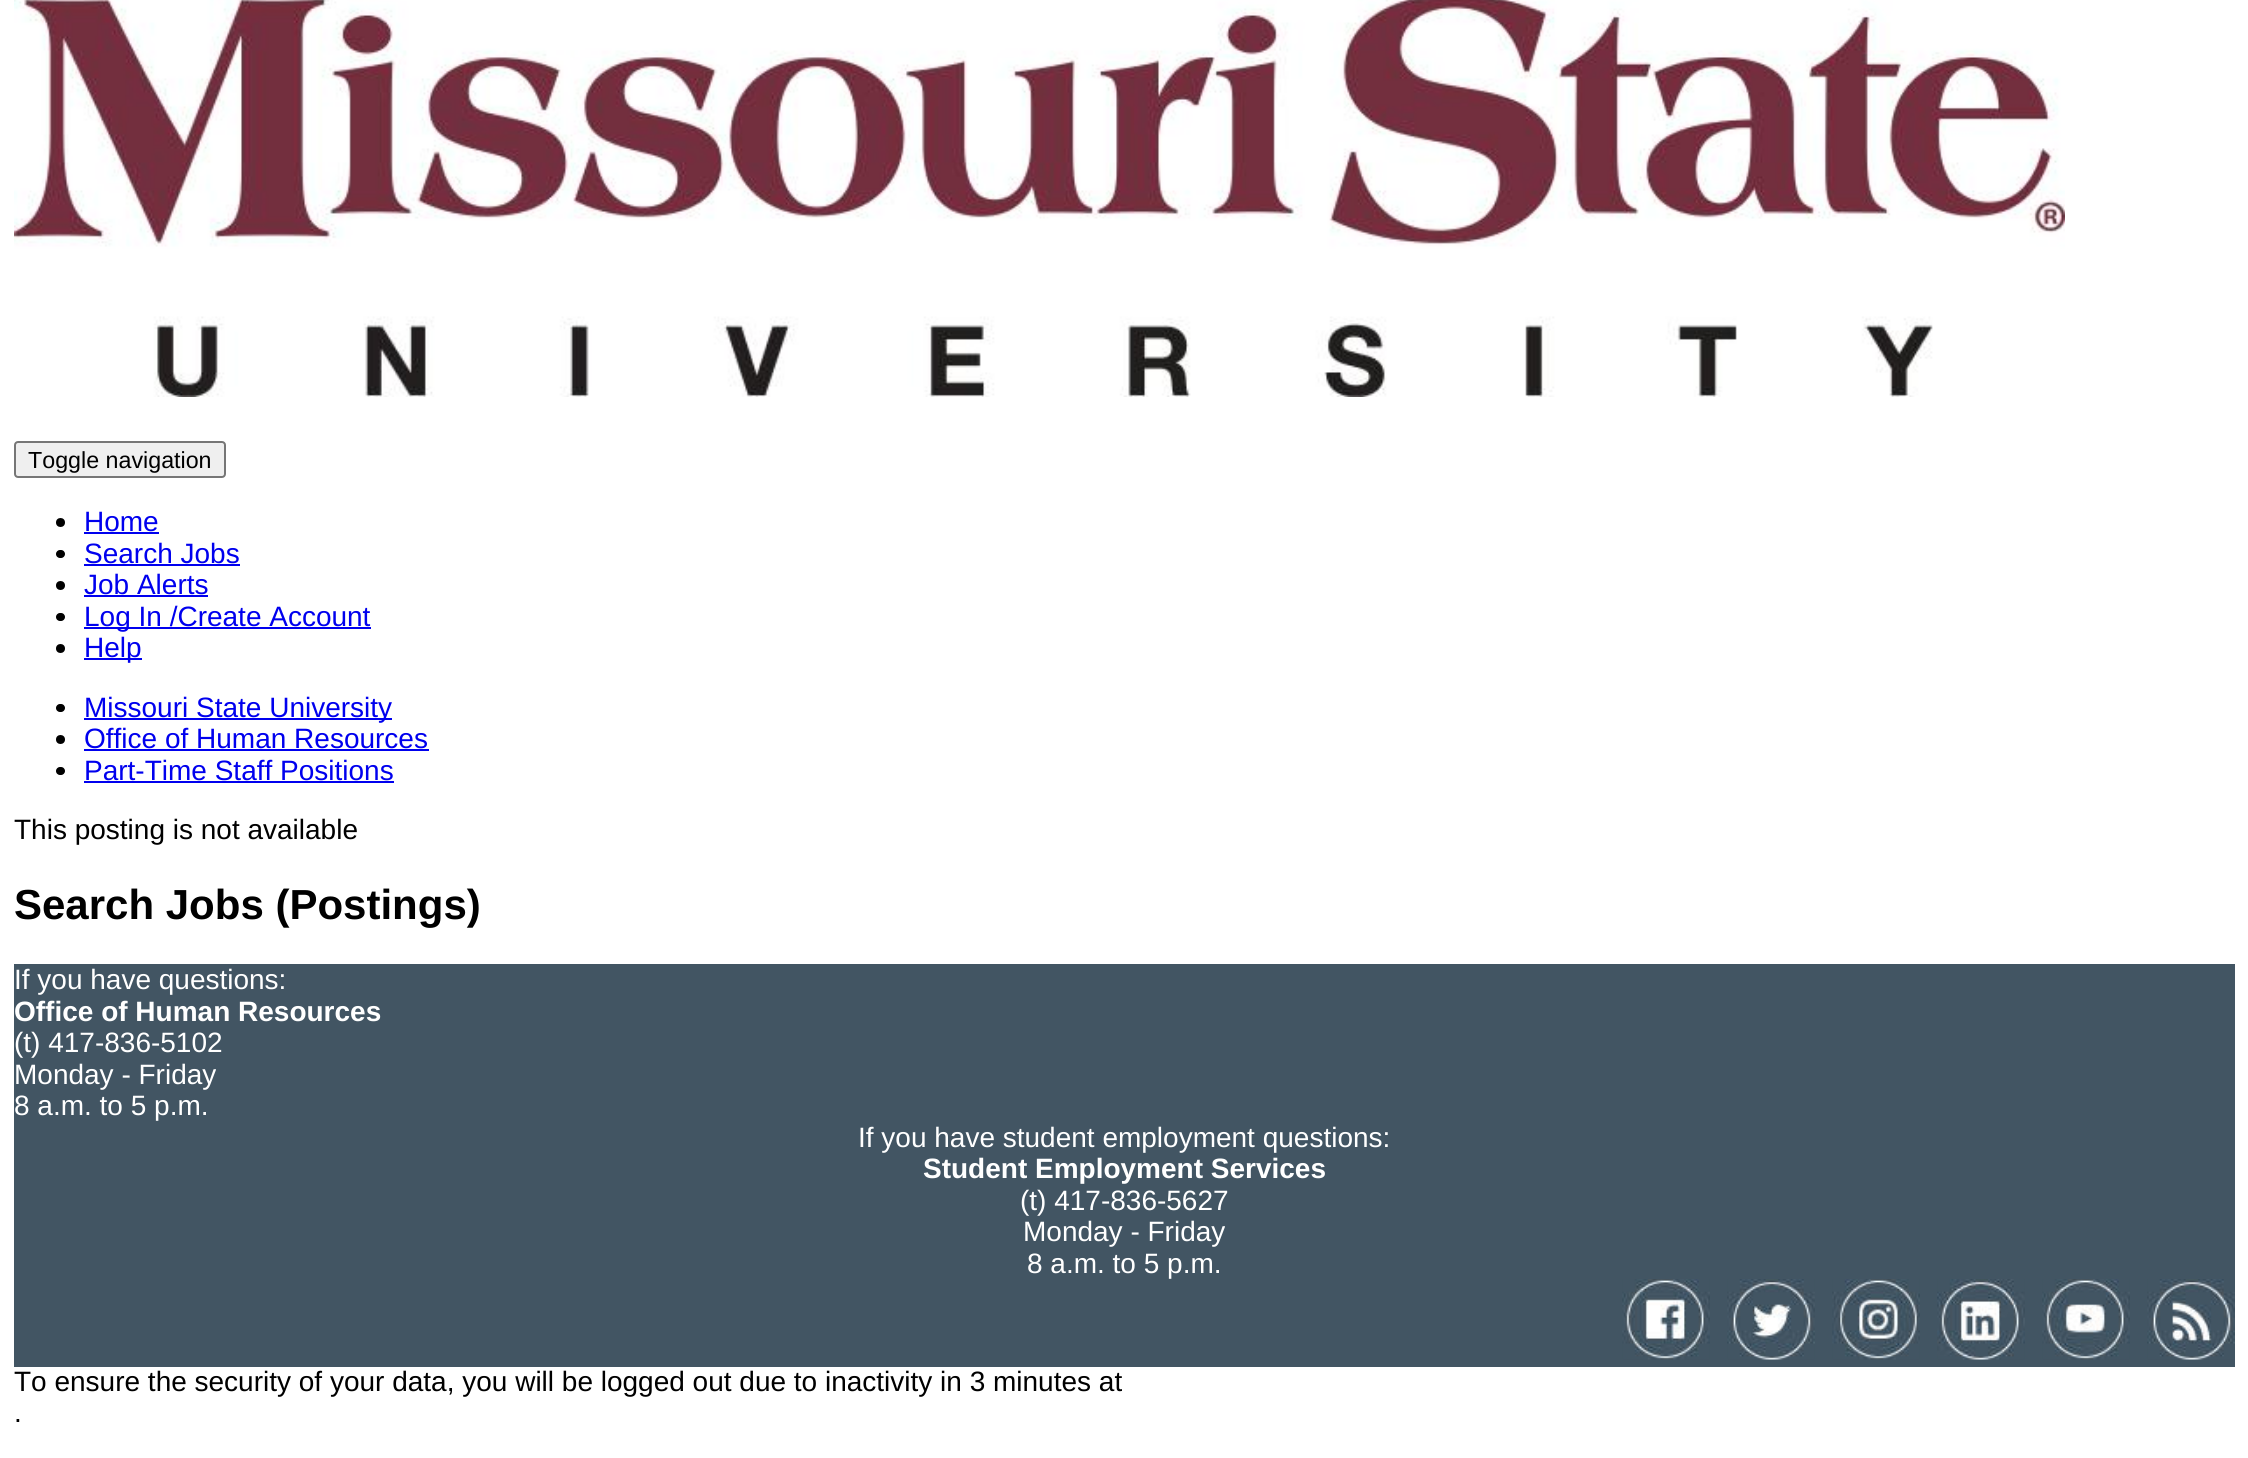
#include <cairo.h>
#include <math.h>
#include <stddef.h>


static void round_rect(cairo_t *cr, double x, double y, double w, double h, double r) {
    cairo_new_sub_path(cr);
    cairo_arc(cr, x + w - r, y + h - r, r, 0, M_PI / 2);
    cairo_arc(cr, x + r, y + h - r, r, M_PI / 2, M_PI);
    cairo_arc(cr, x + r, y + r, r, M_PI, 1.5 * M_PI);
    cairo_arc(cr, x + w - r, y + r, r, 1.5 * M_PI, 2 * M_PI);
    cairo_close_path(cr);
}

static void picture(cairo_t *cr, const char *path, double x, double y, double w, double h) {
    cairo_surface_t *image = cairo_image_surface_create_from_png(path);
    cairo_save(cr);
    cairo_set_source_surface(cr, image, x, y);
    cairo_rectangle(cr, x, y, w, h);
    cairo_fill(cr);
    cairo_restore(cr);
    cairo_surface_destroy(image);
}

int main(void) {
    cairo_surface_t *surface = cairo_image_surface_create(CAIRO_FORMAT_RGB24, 2248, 1458);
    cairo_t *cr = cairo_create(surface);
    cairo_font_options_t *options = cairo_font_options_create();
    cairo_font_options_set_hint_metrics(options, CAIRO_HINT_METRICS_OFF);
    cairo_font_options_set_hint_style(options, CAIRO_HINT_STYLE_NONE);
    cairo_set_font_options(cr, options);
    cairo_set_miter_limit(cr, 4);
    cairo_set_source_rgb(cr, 1, 1, 1);
    cairo_paint(cr);
    picture(cr, "img1.png", 14, 0, 2051, 397);
    cairo_set_source_rgb(cr, 0.937, 0.937, 0.937);
    round_rect(cr, 15, 442, 210, 35, 3);
    cairo_fill_preserve(cr);
    cairo_set_source_rgb(cr, 0.463, 0.463, 0.463);
    cairo_stroke(cr);
    cairo_select_font_face(cr, "Liberation Sans", CAIRO_FONT_SLANT_NORMAL, CAIRO_FONT_WEIGHT_NORMAL);
    cairo_set_font_size(cr, 23.25);
    cairo_set_source_rgb(cr, 0, 0, 0);
    cairo_move_to(cr, 28, 468);
    cairo_show_text(cr, "Toggle navigation");
    cairo_new_path(cr);
    cairo_arc(cr, 60.5, 522.5, 4.5, 0, 2 * M_PI);
    cairo_fill(cr);
    cairo_set_font_size(cr, 28);
    cairo_set_source_rgb(cr, 0, 0, 0.933);
    cairo_move_to(cr, 84, 531);
    cairo_show_text(cr, "Home");
    cairo_rectangle(cr, 84, 532, 75, 2);
    cairo_fill(cr);
    cairo_set_source_rgb(cr, 0, 0, 0);
    round_rect(cr, 56, 550, 9, 8, 4);
    cairo_fill(cr);
    cairo_set_source_rgb(cr, 0, 0, 0.933);
    cairo_move_to(cr, 84, 563);
    cairo_show_text(cr, "Search Jobs");
    cairo_rectangle(cr, 84, 564, 156, 2);
    cairo_fill(cr);
    cairo_set_source_rgb(cr, 0, 0, 0);
    cairo_arc(cr, 60.5, 585.5, 4.5, 0, 2 * M_PI);
    cairo_fill(cr);
    cairo_set_source_rgb(cr, 0, 0, 0.933);
    cairo_move_to(cr, 84, 594);
    cairo_show_text(cr, "Job Alerts");
    cairo_rectangle(cr, 84, 595, 124, 2);
    cairo_fill(cr);
    cairo_set_source_rgb(cr, 0, 0, 0);
    round_rect(cr, 56, 613, 9, 8, 4);
    cairo_fill(cr);
    cairo_set_source_rgb(cr, 0, 0, 0.933);
    cairo_rectangle(cr, 84, 627, 287, 2);
    cairo_fill(cr);
    cairo_move_to(cr, 84, 626);
    cairo_show_text(cr, "Log In /Create Account");
    cairo_set_source_rgb(cr, 0, 0, 0);
    cairo_new_path(cr);
    cairo_arc(cr, 60.5, 648.5, 4.5, 0, 2 * M_PI);
    cairo_fill(cr);
    cairo_set_source_rgb(cr, 0, 0, 0.933);
    cairo_rectangle(cr, 84, 658, 58, 2);
    cairo_fill(cr);
    cairo_move_to(cr, 84, 657);
    cairo_show_text(cr, "Help");
    cairo_set_source_rgb(cr, 0, 0, 0);
    round_rect(cr, 56, 704, 9, 8, 4);
    cairo_fill(cr);
    cairo_set_source_rgb(cr, 0, 0, 0.933);
    cairo_rectangle(cr, 84, 718, 308, 2);
    cairo_fill(cr);
    cairo_move_to(cr, 84, 717);
    cairo_show_text(cr, "Missouri State University");
    cairo_set_source_rgb(cr, 0, 0, 0);
    cairo_new_path(cr);
    cairo_arc(cr, 60.5, 739.5, 4.5, 0, 2 * M_PI);
    cairo_fill(cr);
    cairo_set_source_rgb(cr, 0, 0, 0.933);
    cairo_move_to(cr, 84, 748);
    cairo_show_text(cr, "Office of Human Resources");
    cairo_rectangle(cr, 84, 749, 345, 2);
    cairo_fill(cr);
    cairo_set_source_rgb(cr, 0, 0, 0);
    round_rect(cr, 56, 767, 9, 8, 4);
    cairo_fill(cr);
    cairo_set_source_rgb(cr, 0, 0, 0.933);
    cairo_move_to(cr, 84, 780);
    cairo_show_text(cr, "Part-Time Staff Positions");
    cairo_rectangle(cr, 84, 781, 310, 2);
    cairo_fill(cr);
    cairo_set_source_rgb(cr, 0, 0, 0);
    cairo_move_to(cr, 14, 839);
    cairo_show_text(cr, "This posting is not available");
    cairo_select_font_face(cr, "Liberation Sans", CAIRO_FONT_SLANT_NORMAL, CAIRO_FONT_WEIGHT_BOLD);
    cairo_set_font_size(cr, 42);
    cairo_move_to(cr, 14, 919);
    cairo_show_text(cr, "Search Jobs (Postings)");
    cairo_set_source_rgb(cr, 0.259, 0.333, 0.388);
    cairo_rectangle(cr, 14, 964, 2221, 403);
    cairo_fill(cr);
    cairo_select_font_face(cr, "Liberation Sans", CAIRO_FONT_SLANT_NORMAL, CAIRO_FONT_WEIGHT_NORMAL);
    cairo_set_font_size(cr, 28);
    cairo_set_source_rgb(cr, 1, 1, 1);
    cairo_move_to(cr, 14, 989);
    cairo_show_text(cr, "If you have questions:");
    cairo_select_font_face(cr, "Liberation Sans", CAIRO_FONT_SLANT_NORMAL, CAIRO_FONT_WEIGHT_BOLD);
    cairo_move_to(cr, 14, 1021);
    cairo_show_text(cr, "Office of Human Resources");
    cairo_select_font_face(cr, "Liberation Sans", CAIRO_FONT_SLANT_NORMAL, CAIRO_FONT_WEIGHT_NORMAL);
    cairo_move_to(cr, 14, 1052);
    cairo_show_text(cr, "(t) 417-836-5102");
    cairo_move_to(cr, 14, 1084);
    cairo_show_text(cr, "Monday - Friday");
    cairo_move_to(cr, 14, 1115);
    cairo_show_text(cr, "8 a.m. to 5 p.m.");
    cairo_move_to(cr, 858, 1147);
    cairo_show_text(cr, "If you have student employment questions:");
    cairo_select_font_face(cr, "Liberation Sans", CAIRO_FONT_SLANT_NORMAL, CAIRO_FONT_WEIGHT_BOLD);
    cairo_move_to(cr, 923, 1178);
    cairo_show_text(cr, "Student Employment Services");
    cairo_select_font_face(cr, "Liberation Sans", CAIRO_FONT_SLANT_NORMAL, CAIRO_FONT_WEIGHT_NORMAL);
    cairo_move_to(cr, 1020, 1210);
    cairo_show_text(cr, "(t) 417-836-5627");
    cairo_move_to(cr, 1023, 1241);
    cairo_show_text(cr, "Monday - Friday");
    cairo_move_to(cr, 1027, 1273);
    cairo_show_text(cr, "8 a.m. to 5 p.m.");
    picture(cr, "img2.png", 1622, 1279, 88, 81);
    picture(cr, "img3.png", 1727, 1279, 88, 81);
    picture(cr, "img4.png", 1832, 1279, 88, 81);
    picture(cr, "img5.png", 1937, 1279, 88, 81);
    picture(cr, "img6.png", 2042, 1279, 88, 81);
    picture(cr, "img7.png", 2147, 1279, 88, 81);
    cairo_set_source_rgb(cr, 0, 0, 0);
    cairo_move_to(cr, 14, 1391);
    cairo_show_text(cr, "To ensure the security of your data, you will be logged out due to inactivity in 3 minutes at");
    cairo_move_to(cr, 14, 1422);
    cairo_show_text(cr, ".");
    cairo_surface_write_to_png(surface, "page.png");
    cairo_font_options_destroy(options);
    cairo_destroy(cr);
    cairo_surface_destroy(surface);
    return 0;
}
